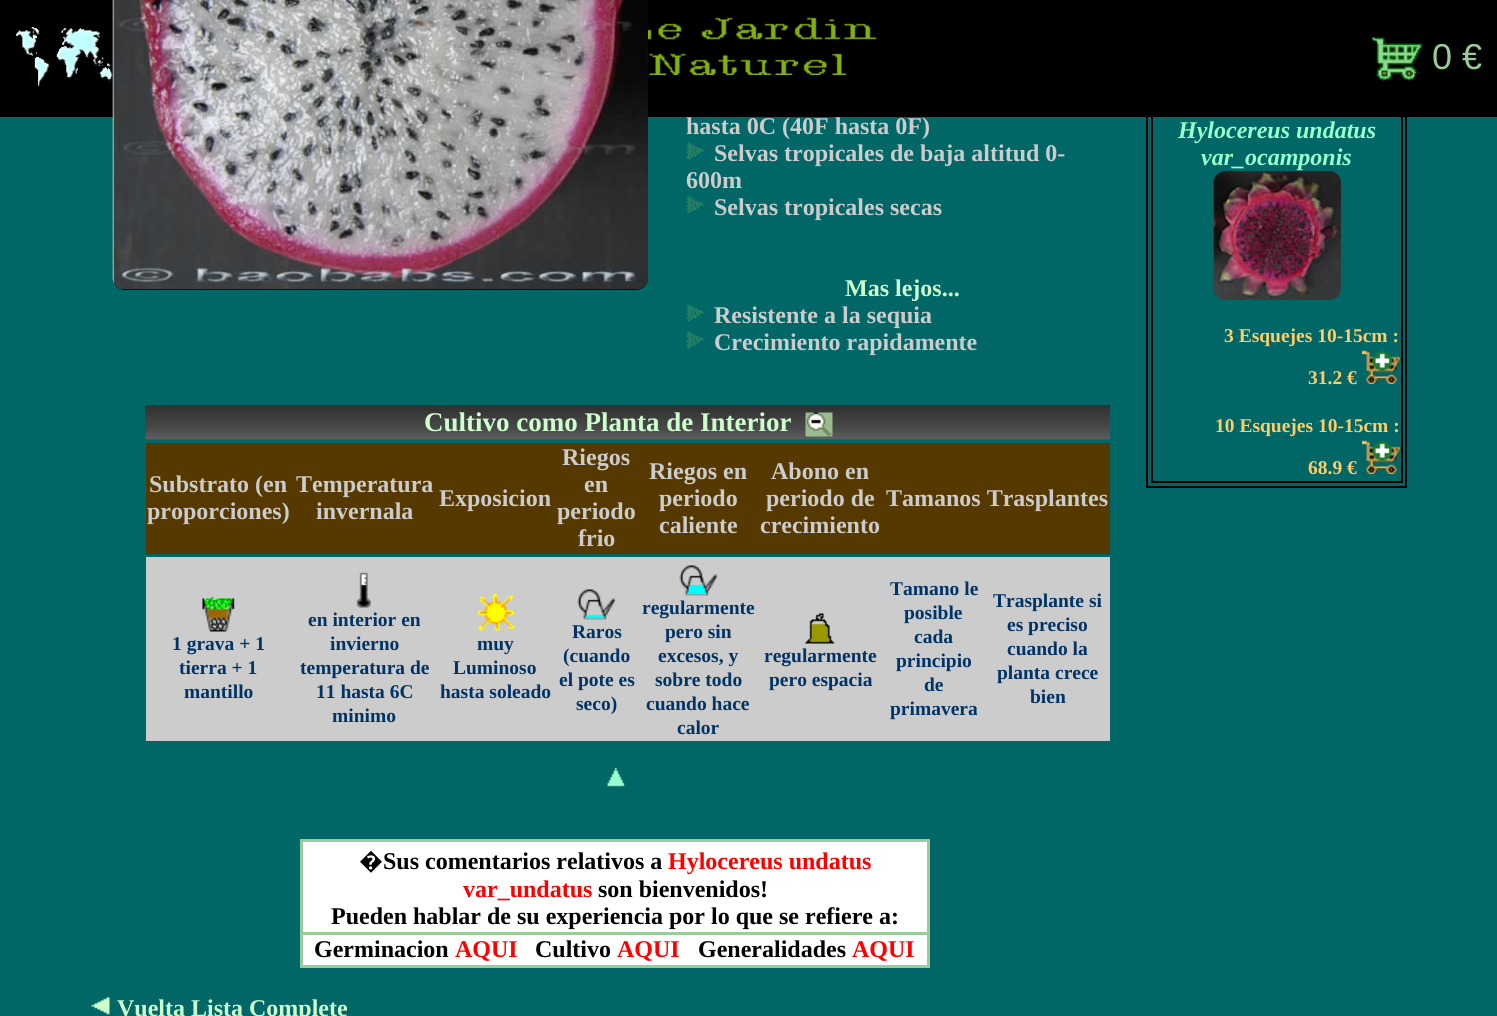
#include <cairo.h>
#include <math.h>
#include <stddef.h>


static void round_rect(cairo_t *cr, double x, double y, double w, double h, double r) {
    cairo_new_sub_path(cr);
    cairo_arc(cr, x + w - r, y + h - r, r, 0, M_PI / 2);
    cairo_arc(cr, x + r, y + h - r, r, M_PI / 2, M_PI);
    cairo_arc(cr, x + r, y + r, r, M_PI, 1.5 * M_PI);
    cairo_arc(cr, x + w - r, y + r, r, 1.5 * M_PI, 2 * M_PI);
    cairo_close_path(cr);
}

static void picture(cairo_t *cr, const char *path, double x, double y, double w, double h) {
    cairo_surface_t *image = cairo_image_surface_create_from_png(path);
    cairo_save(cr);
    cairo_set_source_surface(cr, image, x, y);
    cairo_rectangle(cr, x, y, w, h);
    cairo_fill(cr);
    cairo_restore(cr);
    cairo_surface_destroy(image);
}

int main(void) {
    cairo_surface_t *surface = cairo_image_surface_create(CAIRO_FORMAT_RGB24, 1497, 1016);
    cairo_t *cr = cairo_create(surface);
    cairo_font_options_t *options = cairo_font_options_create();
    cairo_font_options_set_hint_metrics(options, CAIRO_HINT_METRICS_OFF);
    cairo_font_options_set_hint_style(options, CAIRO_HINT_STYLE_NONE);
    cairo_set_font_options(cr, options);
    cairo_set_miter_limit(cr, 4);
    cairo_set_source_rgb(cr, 0, 0.4, 0.4);
    cairo_paint(cr);
    cairo_set_source_rgb(cr, 0, 0, 0);
    round_rect(cr, 113, -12, 535, 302, 12);
    cairo_fill(cr);
    cairo_rectangle(cr, 1147, 111, 259, 376);
    cairo_stroke(cr);
    cairo_rectangle(cr, 1152, 115, 250, 367);
    cairo_stroke(cr);
    cairo_rectangle(cr, 0, 0, 1497, 117);
    cairo_fill(cr);
    picture(cr, "img1.png", 16, 27, 97, 60);
    picture(cr, "img2.png", 648, 17, 229, 58);
    picture(cr, "img3.png", 1372, 37, 50, 44);
    cairo_select_font_face(cr, "Liberation Sans", CAIRO_FONT_SLANT_NORMAL, CAIRO_FONT_WEIGHT_NORMAL);
    cairo_set_font_size(cr, 36);
    cairo_set_source_rgb(cr, 0.6, 0.8, 0.6);
    cairo_move_to(cr, 1432, 69);
    cairo_show_text(cr, "0 €");
    picture(cr, "img4.png", 112, 0, 536, 290);
    cairo_select_font_face(cr, "Liberation Serif", CAIRO_FONT_SLANT_NORMAL, CAIRO_FONT_WEIGHT_BOLD);
    cairo_set_font_size(cr, 24);
    cairo_set_source_rgb(cr, 0.8, 0.8, 0.8);
    cairo_move_to(cr, 686, 134);
    cairo_show_text(cr, "hasta 0C (40F hasta 0F)");
    picture(cr, "img5.png", 686, 142, 20, 18);
    cairo_move_to(cr, 714, 161);
    cairo_show_text(cr, "Selvas tropicales de baja altitud 0-");
    cairo_move_to(cr, 686, 188);
    cairo_show_text(cr, "600m");
    picture(cr, "img5.png", 686, 196, 20, 18);
    cairo_move_to(cr, 714, 215);
    cairo_show_text(cr, "Selvas tropicales secas");
    cairo_set_source_rgb(cr, 0.8, 1, 0.8);
    cairo_move_to(cr, 845, 296);
    cairo_show_text(cr, "Mas lejos...");
    picture(cr, "img5.png", 686, 304, 20, 18);
    cairo_set_source_rgb(cr, 0.8, 0.8, 0.8);
    cairo_move_to(cr, 714, 323);
    cairo_show_text(cr, "Resistente a la sequia");
    picture(cr, "img5.png", 686, 331, 20, 18);
    cairo_move_to(cr, 714, 350);
    cairo_show_text(cr, "Crecimiento rapidamente");
    picture(cr, "img6.png", 145, 405, 965, 35);
    cairo_set_font_size(cr, 27);
    cairo_set_source_rgb(cr, 0.8, 1, 0.8);
    cairo_move_to(cr, 424, 431);
    cairo_show_text(cr, "Cultivo como Planta de Interior");
    picture(cr, "img7.png", 805, 412, 28, 25);
    cairo_set_source_rgb(cr, 0.333, 0.224, 0);
    cairo_rectangle(cr, 146, 443, 964, 111);
    cairo_fill(cr);
    cairo_set_font_size(cr, 24);
    cairo_set_source_rgb(cr, 0.8, 0.8, 0.8);
    cairo_move_to(cr, 149, 492);
    cairo_show_text(cr, "Substrato (en");
    cairo_move_to(cr, 147, 519);
    cairo_show_text(cr, "proporciones)");
    cairo_move_to(cr, 296, 492);
    cairo_show_text(cr, "Temperatura");
    cairo_move_to(cr, 316, 519);
    cairo_show_text(cr, "invernala");
    cairo_move_to(cr, 439, 506);
    cairo_show_text(cr, "Exposicion");
    cairo_move_to(cr, 562, 465);
    cairo_show_text(cr, "Riegos");
    cairo_move_to(cr, 584, 492);
    cairo_show_text(cr, "en");
    cairo_move_to(cr, 557, 519);
    cairo_show_text(cr, "periodo");
    cairo_move_to(cr, 578, 546);
    cairo_show_text(cr, "frio");
    cairo_move_to(cr, 649, 479);
    cairo_show_text(cr, "Riegos en");
    cairo_move_to(cr, 659, 506);
    cairo_show_text(cr, "periodo");
    cairo_move_to(cr, 659, 533);
    cairo_show_text(cr, "caliente");
    cairo_move_to(cr, 771, 479);
    cairo_show_text(cr, "Abono en");
    cairo_move_to(cr, 766, 506);
    cairo_show_text(cr, "periodo de");
    cairo_move_to(cr, 760, 533);
    cairo_show_text(cr, "crecimiento");
    cairo_move_to(cr, 886, 506);
    cairo_show_text(cr, "Tamanos Trasplantes");
    cairo_rectangle(cr, 146, 557, 964, 184);
    cairo_fill(cr);
    picture(cr, "img8.png", 202, 596, 33, 36);
    cairo_set_font_size(cr, 19.5);
    cairo_set_source_rgb(cr, 0, 0.2, 0.4);
    cairo_move_to(cr, 172, 650);
    cairo_show_text(cr, "1 grava + 1");
    cairo_move_to(cr, 179, 674);
    cairo_show_text(cr, "tierra + 1");
    cairo_move_to(cr, 184, 698);
    cairo_show_text(cr, "mantillo");
    picture(cr, "img9.png", 356, 572, 15, 36);
    cairo_move_to(cr, 308, 626);
    cairo_show_text(cr, "en interior en");
    cairo_move_to(cr, 330, 650);
    cairo_show_text(cr, "invierno");
    cairo_move_to(cr, 300, 674);
    cairo_show_text(cr, "temperatura de");
    cairo_move_to(cr, 316, 698);
    cairo_show_text(cr, "11 hasta 6C");
    cairo_move_to(cr, 332, 722);
    cairo_show_text(cr, "minimo");
    picture(cr, "img10.png", 477, 594, 38, 38);
    cairo_move_to(cr, 477, 650);
    cairo_show_text(cr, "muy");
    cairo_move_to(cr, 453, 674);
    cairo_show_text(cr, "Luminoso");
    cairo_move_to(cr, 440, 698);
    cairo_show_text(cr, "hasta soleado");
    picture(cr, "img11.png", 577, 589, 38, 31);
    cairo_move_to(cr, 572, 638);
    cairo_show_text(cr, "Raros");
    cairo_move_to(cr, 563, 662);
    cairo_show_text(cr, "(cuando");
    cairo_move_to(cr, 559, 686);
    cairo_show_text(cr, "el pote es");
    cairo_move_to(cr, 576, 710);
    cairo_show_text(cr, "seco)");
    picture(cr, "img12.png", 679, 565, 38, 31);
    cairo_move_to(cr, 642, 614);
    cairo_show_text(cr, "regularmente");
    cairo_move_to(cr, 665, 638);
    cairo_show_text(cr, "pero sin");
    cairo_move_to(cr, 658, 662);
    cairo_show_text(cr, "excesos, y");
    cairo_move_to(cr, 655, 686);
    cairo_show_text(cr, "sobre todo");
    cairo_move_to(cr, 646, 710);
    cairo_show_text(cr, "cuando hace");
    cairo_move_to(cr, 677, 734);
    cairo_show_text(cr, "calor");
    picture(cr, "img13.png", 805, 613, 30, 31);
    cairo_move_to(cr, 764, 662);
    cairo_show_text(cr, "regularmente");
    cairo_move_to(cr, 769, 686);
    cairo_show_text(cr, "pero espacia");
    cairo_move_to(cr, 890, 595);
    cairo_show_text(cr, "Tamano le");
    cairo_move_to(cr, 904, 619);
    cairo_show_text(cr, "posible");
    cairo_move_to(cr, 914, 643);
    cairo_show_text(cr, "cada");
    cairo_move_to(cr, 896, 667);
    cairo_show_text(cr, "principio");
    cairo_move_to(cr, 924, 691);
    cairo_show_text(cr, "de");
    cairo_move_to(cr, 890, 715);
    cairo_show_text(cr, "primavera");
    cairo_move_to(cr, 993, 607);
    cairo_show_text(cr, "Trasplante si");
    cairo_move_to(cr, 1007, 631);
    cairo_show_text(cr, "es preciso");
    cairo_move_to(cr, 1007, 655);
    cairo_show_text(cr, "cuando la");
    cairo_move_to(cr, 997, 679);
    cairo_show_text(cr, "planta crece");
    cairo_move_to(cr, 1030, 703);
    cairo_show_text(cr, "bien");
    picture(cr, "img14.png", 607, 768, 18, 19);
    cairo_set_source_rgb(cr, 0.6, 0.8, 0.6);
    cairo_rectangle(cr, 300, 839, 630, 129);
    cairo_fill(cr);
    cairo_set_source_rgb(cr, 1, 1, 1);
    cairo_rectangle(cr, 303, 842, 624, 90);
    cairo_fill(cr);
    cairo_select_font_face(cr, "Noto Sans Black", CAIRO_FONT_SLANT_NORMAL, CAIRO_FONT_WEIGHT_NORMAL);
    cairo_set_font_size(cr, 24);
    cairo_set_source_rgb(cr, 0, 0, 0);
    cairo_move_to(cr, 359, 869);
    cairo_show_text(cr, "�");
    cairo_select_font_face(cr, "Liberation Serif", CAIRO_FONT_SLANT_NORMAL, CAIRO_FONT_WEIGHT_BOLD);
    cairo_move_to(cr, 383, 869);
    cairo_show_text(cr, "Sus comentarios relativos a");
    cairo_set_source_rgb(cr, 1, 0, 0);
    cairo_move_to(cr, 668, 869);
    cairo_show_text(cr, "Hylocereus undatus");
    cairo_move_to(cr, 463, 897);
    cairo_show_text(cr, "var_undatus");
    cairo_set_source_rgb(cr, 0, 0, 0);
    cairo_move_to(cr, 598, 897);
    cairo_show_text(cr, "son bienvenidos!");
    cairo_move_to(cr, 331, 924);
    cairo_show_text(cr, "Pueden hablar de su experiencia por lo que se refiere a:");
    cairo_set_source_rgb(cr, 1, 1, 1);
    cairo_rectangle(cr, 303, 935, 624, 30);
    cairo_fill(cr);
    cairo_set_source_rgb(cr, 0, 0, 0);
    cairo_move_to(cr, 314, 957);
    cairo_show_text(cr, "Germinacion");
    cairo_set_source_rgb(cr, 1, 0, 0);
    cairo_move_to(cr, 455, 957);
    cairo_show_text(cr, "AQUI");
    cairo_set_source_rgb(cr, 0, 0, 0);
    cairo_move_to(cr, 535, 957);
    cairo_show_text(cr, "Cultivo");
    cairo_set_source_rgb(cr, 1, 0, 0);
    cairo_move_to(cr, 617, 957);
    cairo_show_text(cr, "AQUI");
    cairo_set_source_rgb(cr, 0, 0, 0);
    cairo_move_to(cr, 698, 957);
    cairo_show_text(cr, "Generalidades");
    cairo_set_source_rgb(cr, 1, 0, 0);
    cairo_move_to(cr, 852, 957);
    cairo_show_text(cr, "AQUI");
    picture(cr, "img15.png", 91, 997, 19, 18);
    cairo_set_source_rgb(cr, 0.8, 1, 0.8);
    cairo_move_to(cr, 117, 1016);
    cairo_show_text(cr, "Vuelta Lista Complete");
    cairo_select_font_face(cr, "Liberation Serif", CAIRO_FONT_SLANT_ITALIC, CAIRO_FONT_WEIGHT_BOLD);
    cairo_set_source_rgb(cr, 0.6, 1, 0.8);
    cairo_move_to(cr, 1178, 138);
    cairo_show_text(cr, "Hylocereus undatus");
    cairo_move_to(cr, 1201, 165);
    cairo_show_text(cr, "var_ocamponis");
    picture(cr, "img16.png", 1213, 171, 128, 129);
    cairo_select_font_face(cr, "Liberation Serif", CAIRO_FONT_SLANT_NORMAL, CAIRO_FONT_WEIGHT_BOLD);
    cairo_set_font_size(cr, 19.5);
    cairo_set_source_rgb(cr, 1, 0.8, 0.4);
    cairo_move_to(cr, 1224, 342);
    cairo_show_text(cr, "3 Esquejes 10-15cm :");
    cairo_move_to(cr, 1308, 384);
    cairo_show_text(cr, "31.2 €");
    picture(cr, "img17.png", 1362, 350, 38, 34);
    cairo_move_to(cr, 1215, 432);
    cairo_show_text(cr, "10 Esquejes 10-15cm :");
    cairo_move_to(cr, 1308, 474);
    cairo_show_text(cr, "68.9 €");
    picture(cr, "img17.png", 1362, 440, 38, 34);
    cairo_surface_write_to_png(surface, "page.png");
    cairo_font_options_destroy(options);
    cairo_destroy(cr);
    cairo_surface_destroy(surface);
    return 0;
}
